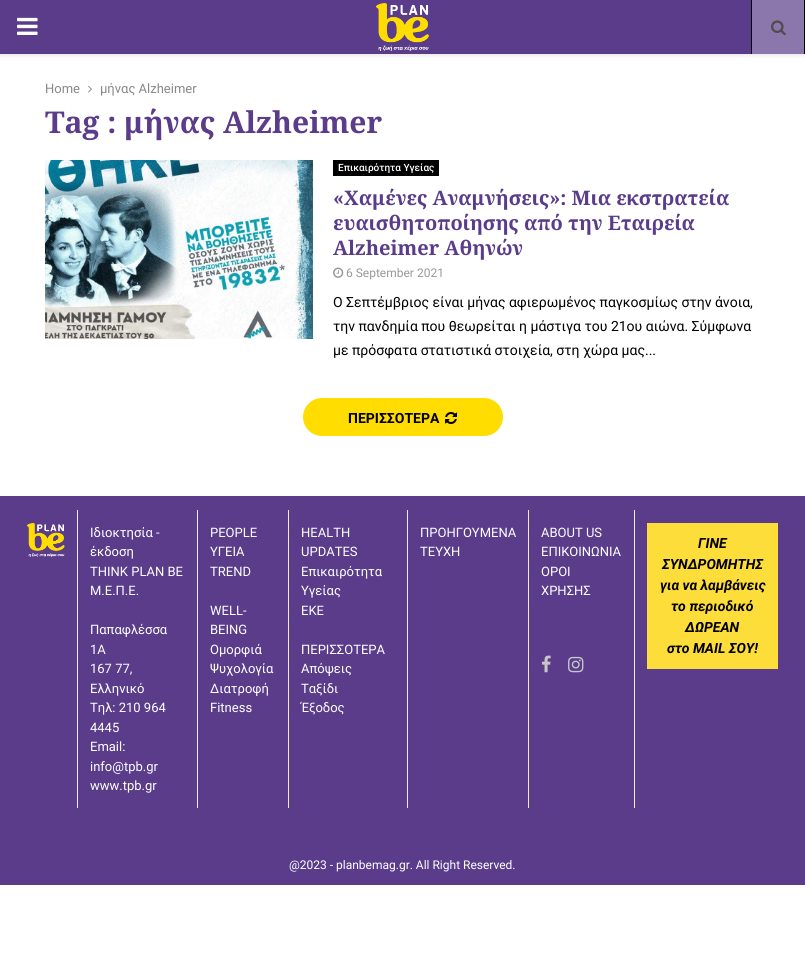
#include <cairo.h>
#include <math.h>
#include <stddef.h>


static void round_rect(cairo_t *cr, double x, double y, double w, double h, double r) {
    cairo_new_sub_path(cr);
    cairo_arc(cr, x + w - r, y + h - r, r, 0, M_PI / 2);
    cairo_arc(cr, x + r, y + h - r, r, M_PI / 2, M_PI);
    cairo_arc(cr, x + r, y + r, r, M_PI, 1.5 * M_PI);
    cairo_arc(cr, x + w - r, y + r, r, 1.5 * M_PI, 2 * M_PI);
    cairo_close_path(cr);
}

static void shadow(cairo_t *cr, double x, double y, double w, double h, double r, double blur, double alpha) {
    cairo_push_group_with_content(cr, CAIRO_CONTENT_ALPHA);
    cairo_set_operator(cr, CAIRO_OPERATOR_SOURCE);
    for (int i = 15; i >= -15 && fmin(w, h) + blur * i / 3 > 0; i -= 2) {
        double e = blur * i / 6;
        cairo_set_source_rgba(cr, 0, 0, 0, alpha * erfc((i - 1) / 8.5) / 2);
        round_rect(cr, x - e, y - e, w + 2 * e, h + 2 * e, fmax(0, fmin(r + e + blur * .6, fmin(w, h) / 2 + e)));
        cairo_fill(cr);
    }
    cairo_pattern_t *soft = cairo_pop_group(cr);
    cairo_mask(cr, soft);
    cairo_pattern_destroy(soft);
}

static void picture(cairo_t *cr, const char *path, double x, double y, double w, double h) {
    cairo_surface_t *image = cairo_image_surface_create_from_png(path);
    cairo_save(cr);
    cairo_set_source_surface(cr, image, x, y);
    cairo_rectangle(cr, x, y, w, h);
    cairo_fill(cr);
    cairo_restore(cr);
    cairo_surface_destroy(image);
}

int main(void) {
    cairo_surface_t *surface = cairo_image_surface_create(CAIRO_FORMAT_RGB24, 805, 954);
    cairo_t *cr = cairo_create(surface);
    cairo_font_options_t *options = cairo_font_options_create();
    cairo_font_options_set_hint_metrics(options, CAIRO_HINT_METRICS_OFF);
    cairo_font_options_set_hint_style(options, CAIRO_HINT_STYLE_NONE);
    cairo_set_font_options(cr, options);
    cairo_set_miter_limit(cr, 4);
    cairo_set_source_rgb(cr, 1, 1, 1);
    cairo_paint(cr);
    cairo_set_source_rgb(cr, 0.745, 0.745, 0.745);
    shadow(cr, 0, 1, 805, 54, 0, 2.5, 0.46);
    cairo_set_source_rgb(cr, 0.353, 0.235, 0.541);
    cairo_rectangle(cr, 0, 0, 751, 54);
    cairo_fill(cr);
    picture(cr, "img1.png", 17, 17, 21, 18);
    picture(cr, "img2.png", 376, 3, 53, 48);
    cairo_set_source_rgb(cr, 0.549, 0.467, 0.678);
    cairo_rectangle(cr, 752, 0, 52, 54);
    cairo_fill(cr);
    cairo_set_source_rgb(cr, 0, 0, 0);
    cairo_rectangle(cr, 804, 0, 1, 54);
    cairo_fill(cr);
    cairo_rectangle(cr, 751, 0, 1, 54);
    cairo_fill(cr);
    picture(cr, "img3.png", 771, 20, 15, 16);
    cairo_select_font_face(cr, "Roboto", CAIRO_FONT_SLANT_NORMAL, CAIRO_FONT_WEIGHT_NORMAL);
    cairo_set_font_size(cr, 13);
    cairo_set_source_rgb(cr, 0.533, 0.533, 0.533);
    cairo_move_to(cr, 45, 93);
    cairo_show_text(cr, "Home");
    picture(cr, "img4.png", 88, 85, 4, 8);
    cairo_move_to(cr, 100, 93);
    cairo_show_text(cr, "μήνας Alzheimer");
    cairo_select_font_face(cr, "Noto Serif", CAIRO_FONT_SLANT_NORMAL, CAIRO_FONT_WEIGHT_BOLD);
    cairo_set_font_size(cr, 30);
    cairo_set_source_rgb(cr, 0.353, 0.235, 0.541);
    cairo_move_to(cr, 45, 133);
    cairo_show_text(cr, "Tag : μήνας Alzheimer");
    picture(cr, "img5.png", 45, 160, 268, 179);
    cairo_set_source_rgb(cr, 0, 0, 0);
    cairo_rectangle(cr, 333, 160, 106, 16);
    cairo_fill(cr);
    cairo_select_font_face(cr, "Roboto Medium", CAIRO_FONT_SLANT_NORMAL, CAIRO_FONT_WEIGHT_NORMAL);
    cairo_set_font_size(cr, 10);
    cairo_set_source_rgb(cr, 1, 1, 1);
    cairo_move_to(cr, 338, 171);
    cairo_show_text(cr, "Επικαιρότητα Υγείας");
    cairo_select_font_face(cr, "Noto Serif", CAIRO_FONT_SLANT_NORMAL, CAIRO_FONT_WEIGHT_BOLD);
    cairo_set_font_size(cr, 20);
    cairo_set_source_rgb(cr, 0.353, 0.235, 0.541);
    cairo_move_to(cr, 333, 205);
    cairo_show_text(cr, "«Χαμένες Αναμνήσεις»: Μια εκστρατεία");
    cairo_move_to(cr, 333, 230);
    cairo_show_text(cr, "ευαισθητοποίησης από την Εταιρεία");
    cairo_move_to(cr, 333, 255);
    cairo_show_text(cr, "Alzheimer Αθηνών");
    picture(cr, "img6.png", 333, 267, 11, 11);
    cairo_select_font_face(cr, "Roboto", CAIRO_FONT_SLANT_NORMAL, CAIRO_FONT_WEIGHT_NORMAL);
    cairo_set_font_size(cr, 12);
    cairo_set_source_rgb(cr, 0.6, 0.6, 0.6);
    cairo_move_to(cr, 346, 277);
    cairo_show_text(cr, "6 September 2021");
    cairo_set_font_size(cr, 14);
    cairo_set_source_rgb(cr, 0, 0, 0);
    cairo_move_to(cr, 333, 307);
    cairo_show_text(cr, "Ο Σεπτέμβριος είναι μήνας αφιερωμένος παγκοσμίως στην άνοια,");
    cairo_move_to(cr, 333, 331);
    cairo_show_text(cr, "την πανδημία που θεωρείται η μάστιγα του 21ου αιώνα. Σύµφωνα");
    cairo_move_to(cr, 333, 355);
    cairo_show_text(cr, "µε πρόσφατα στατιστικά στοιχεία, στη χώρα μας...");
    cairo_set_source_rgb(cr, 1, 0.867, 0);
    round_rect(cr, 303, 398, 200, 38, 19);
    cairo_fill(cr);
    cairo_select_font_face(cr, "Roboto", CAIRO_FONT_SLANT_NORMAL, CAIRO_FONT_WEIGHT_BOLD);
    cairo_set_source_rgb(cr, 0, 0, 0);
    cairo_move_to(cr, 348, 423);
    cairo_show_text(cr, "ΠΕΡΙΣΣΟΤΕΡΑ");
    picture(cr, "img7.png", 445, 412, 12, 12);
    cairo_set_source_rgb(cr, 0.353, 0.235, 0.541);
    cairo_rectangle(cr, 0, 496, 805, 389);
    cairo_fill(cr);
    cairo_set_source_rgb(cr, 0.925, 0.925, 0.925);
    cairo_rectangle(cr, 77, 510, 1, 298);
    cairo_fill(cr);
    picture(cr, "img8.png", 27, 523, 38, 34);
    cairo_rectangle(cr, 197, 510, 1, 298);
    cairo_fill(cr);
    cairo_select_font_face(cr, "Roboto", CAIRO_FONT_SLANT_NORMAL, CAIRO_FONT_WEIGHT_NORMAL);
    cairo_set_font_size(cr, 13);
    cairo_set_source_rgb(cr, 1, 1, 1);
    cairo_move_to(cr, 90, 537);
    cairo_show_text(cr, "Ιδιοκτησία -");
    cairo_move_to(cr, 90, 556);
    cairo_show_text(cr, "έκδοση");
    cairo_move_to(cr, 90, 576);
    cairo_show_text(cr, "THINK PLAN BE");
    cairo_move_to(cr, 90, 595);
    cairo_show_text(cr, "Μ.Ε.Π.Ε.");
    cairo_move_to(cr, 90, 634);
    cairo_show_text(cr, "Παπαφλέσσα");
    cairo_move_to(cr, 90, 654);
    cairo_show_text(cr, "1Α");
    cairo_move_to(cr, 90, 673);
    cairo_show_text(cr, "167 77,");
    cairo_move_to(cr, 90, 693);
    cairo_show_text(cr, "Ελληνικό");
    cairo_move_to(cr, 90, 712);
    cairo_show_text(cr, "Τηλ: 210 964");
    cairo_move_to(cr, 90, 732);
    cairo_show_text(cr, "4445");
    cairo_move_to(cr, 90, 751);
    cairo_show_text(cr, "Email:");
    cairo_move_to(cr, 90, 771);
    cairo_show_text(cr, "info@tpb.gr");
    cairo_move_to(cr, 90, 790);
    cairo_show_text(cr, "www.tpb.gr");
    cairo_set_source_rgb(cr, 0.925, 0.925, 0.925);
    cairo_rectangle(cr, 288, 510, 1, 298);
    cairo_fill(cr);
    cairo_set_source_rgb(cr, 1, 1, 1);
    cairo_move_to(cr, 210, 537);
    cairo_show_text(cr, "PEOPLE");
    cairo_move_to(cr, 210, 556);
    cairo_show_text(cr, "ΥΓΕΙΑ");
    cairo_move_to(cr, 210, 576);
    cairo_show_text(cr, "TREND");
    cairo_move_to(cr, 210, 615);
    cairo_show_text(cr, "WELL-");
    cairo_move_to(cr, 210, 634);
    cairo_show_text(cr, "BEING");
    cairo_move_to(cr, 210, 654);
    cairo_show_text(cr, "Ομορφιά");
    cairo_move_to(cr, 210, 673);
    cairo_show_text(cr, "Ψυχολογία");
    cairo_move_to(cr, 210, 693);
    cairo_show_text(cr, "Διατροφή");
    cairo_move_to(cr, 210, 712);
    cairo_show_text(cr, "Fitness");
    cairo_set_source_rgb(cr, 0.925, 0.925, 0.925);
    cairo_rectangle(cr, 407, 510, 1, 298);
    cairo_fill(cr);
    cairo_set_source_rgb(cr, 1, 1, 1);
    cairo_move_to(cr, 301, 537);
    cairo_show_text(cr, "HEALTH");
    cairo_move_to(cr, 301, 556);
    cairo_show_text(cr, "UPDATES");
    cairo_move_to(cr, 301, 576);
    cairo_show_text(cr, "Επικαιρότητα");
    cairo_move_to(cr, 301, 595);
    cairo_show_text(cr, "Υγείας");
    cairo_move_to(cr, 301, 615);
    cairo_show_text(cr, "ΕΚΕ");
    cairo_move_to(cr, 301, 654);
    cairo_show_text(cr, "ΠΕΡΙΣΣΟΤΕΡΑ");
    cairo_move_to(cr, 301, 673);
    cairo_show_text(cr, "Απόψεις");
    cairo_move_to(cr, 301, 693);
    cairo_show_text(cr, "Ταξίδι");
    cairo_move_to(cr, 301, 712);
    cairo_show_text(cr, "Έξοδος");
    cairo_set_source_rgb(cr, 0.925, 0.925, 0.925);
    cairo_rectangle(cr, 528, 510, 1, 298);
    cairo_fill(cr);
    cairo_set_source_rgb(cr, 1, 1, 1);
    cairo_move_to(cr, 420, 537);
    cairo_show_text(cr, "ΠΡΟΗΓΟΥΜΕΝΑ");
    cairo_move_to(cr, 420, 556);
    cairo_show_text(cr, "ΤΕΥΧΗ");
    cairo_set_source_rgb(cr, 0.925, 0.925, 0.925);
    cairo_rectangle(cr, 634, 510, 1, 298);
    cairo_fill(cr);
    cairo_set_source_rgb(cr, 1, 1, 1);
    cairo_move_to(cr, 541, 537);
    cairo_show_text(cr, "ABOUT US");
    cairo_move_to(cr, 541, 556);
    cairo_show_text(cr, "ΕΠΙΚΟΙΝΩΝΙΑ");
    cairo_move_to(cr, 541, 576);
    cairo_show_text(cr, "ΟΡΟΙ");
    cairo_move_to(cr, 541, 595);
    cairo_show_text(cr, "ΧΡΗΣΗΣ");
    picture(cr, "img9.png", 541, 655, 10, 18);
    picture(cr, "img10.png", 568, 656, 16, 17);
    cairo_set_source_rgb(cr, 0.992, 0.867, 0.224);
    cairo_rectangle(cr, 647, 523, 131, 146);
    cairo_fill(cr);
    cairo_select_font_face(cr, "Roboto", CAIRO_FONT_SLANT_ITALIC, CAIRO_FONT_WEIGHT_BOLD);
    cairo_set_font_size(cr, 14);
    cairo_set_source_rgb(cr, 0, 0, 0);
    cairo_move_to(cr, 698, 548);
    cairo_show_text(cr, "ΓΙΝΕ");
    cairo_move_to(cr, 662, 569);
    cairo_show_text(cr, "ΣΥΝΔΡΟΜΗΤΗΣ");
    cairo_move_to(cr, 660, 590);
    cairo_show_text(cr, "για να λαμβάνεις");
    cairo_move_to(cr, 671, 611);
    cairo_show_text(cr, "το περιοδικό");
    cairo_move_to(cr, 685, 632);
    cairo_show_text(cr, "ΔΩΡΕΑΝ");
    cairo_move_to(cr, 667, 653);
    cairo_show_text(cr, "στο MAIL ΣΟΥ!");
    cairo_select_font_face(cr, "Roboto", CAIRO_FONT_SLANT_NORMAL, CAIRO_FONT_WEIGHT_NORMAL);
    cairo_set_font_size(cr, 12);
    cairo_set_source_rgb(cr, 1, 1, 1);
    cairo_move_to(cr, 289, 869);
    cairo_show_text(cr, "@2023 - planbemag.gr. All Right Reserved.");
    cairo_surface_write_to_png(surface, "page.png");
    cairo_font_options_destroy(options);
    cairo_destroy(cr);
    cairo_surface_destroy(surface);
    return 0;
}
